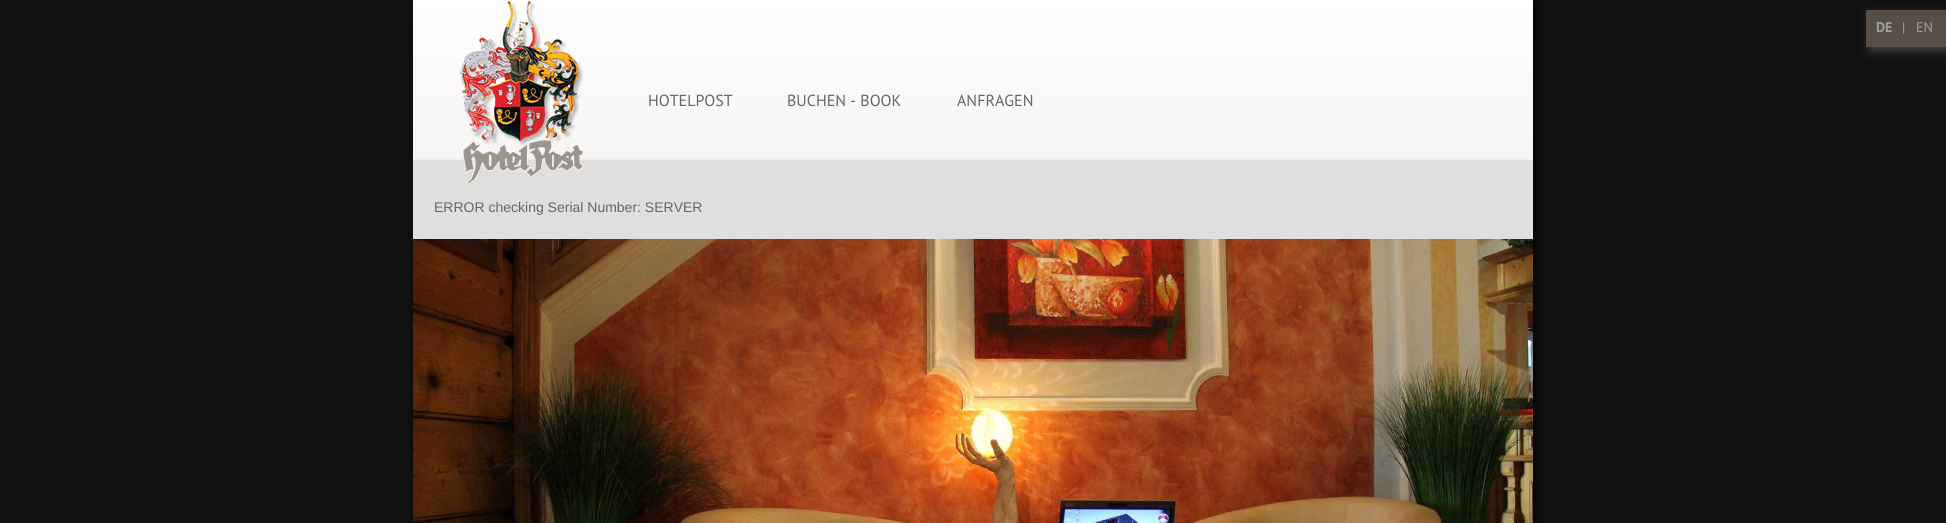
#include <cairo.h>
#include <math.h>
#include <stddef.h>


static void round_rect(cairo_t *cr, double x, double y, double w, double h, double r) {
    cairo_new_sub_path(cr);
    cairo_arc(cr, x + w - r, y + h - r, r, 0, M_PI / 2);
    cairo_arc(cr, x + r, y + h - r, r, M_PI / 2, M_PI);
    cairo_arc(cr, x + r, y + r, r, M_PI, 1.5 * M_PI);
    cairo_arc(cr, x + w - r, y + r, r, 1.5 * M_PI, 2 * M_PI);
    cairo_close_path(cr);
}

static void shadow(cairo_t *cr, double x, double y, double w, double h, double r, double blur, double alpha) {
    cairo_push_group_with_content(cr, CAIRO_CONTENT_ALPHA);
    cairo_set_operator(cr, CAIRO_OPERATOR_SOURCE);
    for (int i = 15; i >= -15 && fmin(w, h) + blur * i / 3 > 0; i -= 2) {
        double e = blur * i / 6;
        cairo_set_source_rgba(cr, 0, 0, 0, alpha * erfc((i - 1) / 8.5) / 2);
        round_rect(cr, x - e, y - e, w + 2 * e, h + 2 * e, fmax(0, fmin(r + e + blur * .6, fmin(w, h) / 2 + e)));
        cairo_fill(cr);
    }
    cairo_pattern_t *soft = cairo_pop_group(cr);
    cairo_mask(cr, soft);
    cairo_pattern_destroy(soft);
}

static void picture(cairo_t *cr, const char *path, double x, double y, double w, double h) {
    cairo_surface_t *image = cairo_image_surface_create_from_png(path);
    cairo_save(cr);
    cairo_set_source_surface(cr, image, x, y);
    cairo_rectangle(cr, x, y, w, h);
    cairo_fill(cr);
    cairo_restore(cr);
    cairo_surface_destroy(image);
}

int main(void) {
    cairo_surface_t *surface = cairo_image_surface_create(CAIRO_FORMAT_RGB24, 1946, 523);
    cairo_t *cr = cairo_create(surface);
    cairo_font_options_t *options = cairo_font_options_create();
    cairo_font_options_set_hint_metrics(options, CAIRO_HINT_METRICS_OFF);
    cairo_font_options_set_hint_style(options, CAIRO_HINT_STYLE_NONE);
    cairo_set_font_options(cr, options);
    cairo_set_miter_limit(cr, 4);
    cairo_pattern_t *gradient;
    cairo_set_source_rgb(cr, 0.067, 0.067, 0.067);
    cairo_paint(cr);
    cairo_set_source_rgb(cr, 0, 0, 0);
    shadow(cr, 416, 3, 1120, 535, 0, 5, 1);
    gradient = cairo_pattern_create_linear(973, 0, 973, 159);
    cairo_pattern_add_color_stop_rgba(gradient, 0, 1, 1, 1, 1);
    cairo_pattern_add_color_stop_rgba(gradient, 1, 0.969, 0.961, 0.957, 1);
    cairo_set_source(cr, gradient);
    cairo_pattern_destroy(gradient);
    cairo_rectangle(cr, 413, 0, 1120, 159);
    cairo_fill(cr);
    cairo_set_source_rgb(cr, 0.267, 0.267, 0.267);
    shadow(cr, 1870, 14, 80, 37, 0, 5, 1);
    cairo_set_source_rgb(cr, 0.341, 0.31, 0.275);
    cairo_rectangle(cr, 1866, 10, 80, 37);
    cairo_fill(cr);
    cairo_select_font_face(cr, "PT Sans", CAIRO_FONT_SLANT_NORMAL, CAIRO_FONT_WEIGHT_BOLD);
    cairo_set_font_size(cr, 14);
    cairo_set_source_rgb(cr, 0.627, 0.627, 0.627);
    cairo_move_to(cr, 1876, 32);
    cairo_show_text(cr, "DE");
    cairo_select_font_face(cr, "PT Sans", CAIRO_FONT_SLANT_NORMAL, CAIRO_FONT_WEIGHT_NORMAL);
    cairo_move_to(cr, 1902, 32);
    cairo_show_text(cr, "|");
    cairo_move_to(cr, 1916, 32);
    cairo_show_text(cr, "EN");
    cairo_set_source_rgb(cr, 0.882, 0.875, 0.867);
    cairo_rectangle(cr, 413, 160, 1120, 79);
    cairo_fill(cr);
    cairo_set_source_rgb(cr, 0.941, 0.933, 0.925);
    cairo_rectangle(cr, 413, 159, 1120, 1);
    cairo_fill(cr);
    picture(cr, "img1.png", 460, 0, 124, 184);
    cairo_set_font_size(cr, 16);
    cairo_set_source_rgb(cr, 0.4, 0.4, 0.4);
    cairo_move_to(cr, 648, 106);
    cairo_show_text(cr, "HOTELPOST");
    cairo_move_to(cr, 787, 106);
    cairo_show_text(cr, "BUCHEN - BOOK");
    cairo_move_to(cr, 957, 106);
    cairo_show_text(cr, "ANFRAGEN");
    cairo_select_font_face(cr, "Liberation Sans", CAIRO_FONT_SLANT_NORMAL, CAIRO_FONT_WEIGHT_NORMAL);
    cairo_set_font_size(cr, 14);
    cairo_move_to(cr, 434, 212);
    cairo_show_text(cr, "ERROR checking Serial Number: SERVER");
    picture(cr, "img2.png", 413, 239, 1120, 284);
    cairo_surface_write_to_png(surface, "page.png");
    cairo_font_options_destroy(options);
    cairo_destroy(cr);
    cairo_surface_destroy(surface);
    return 0;
}
